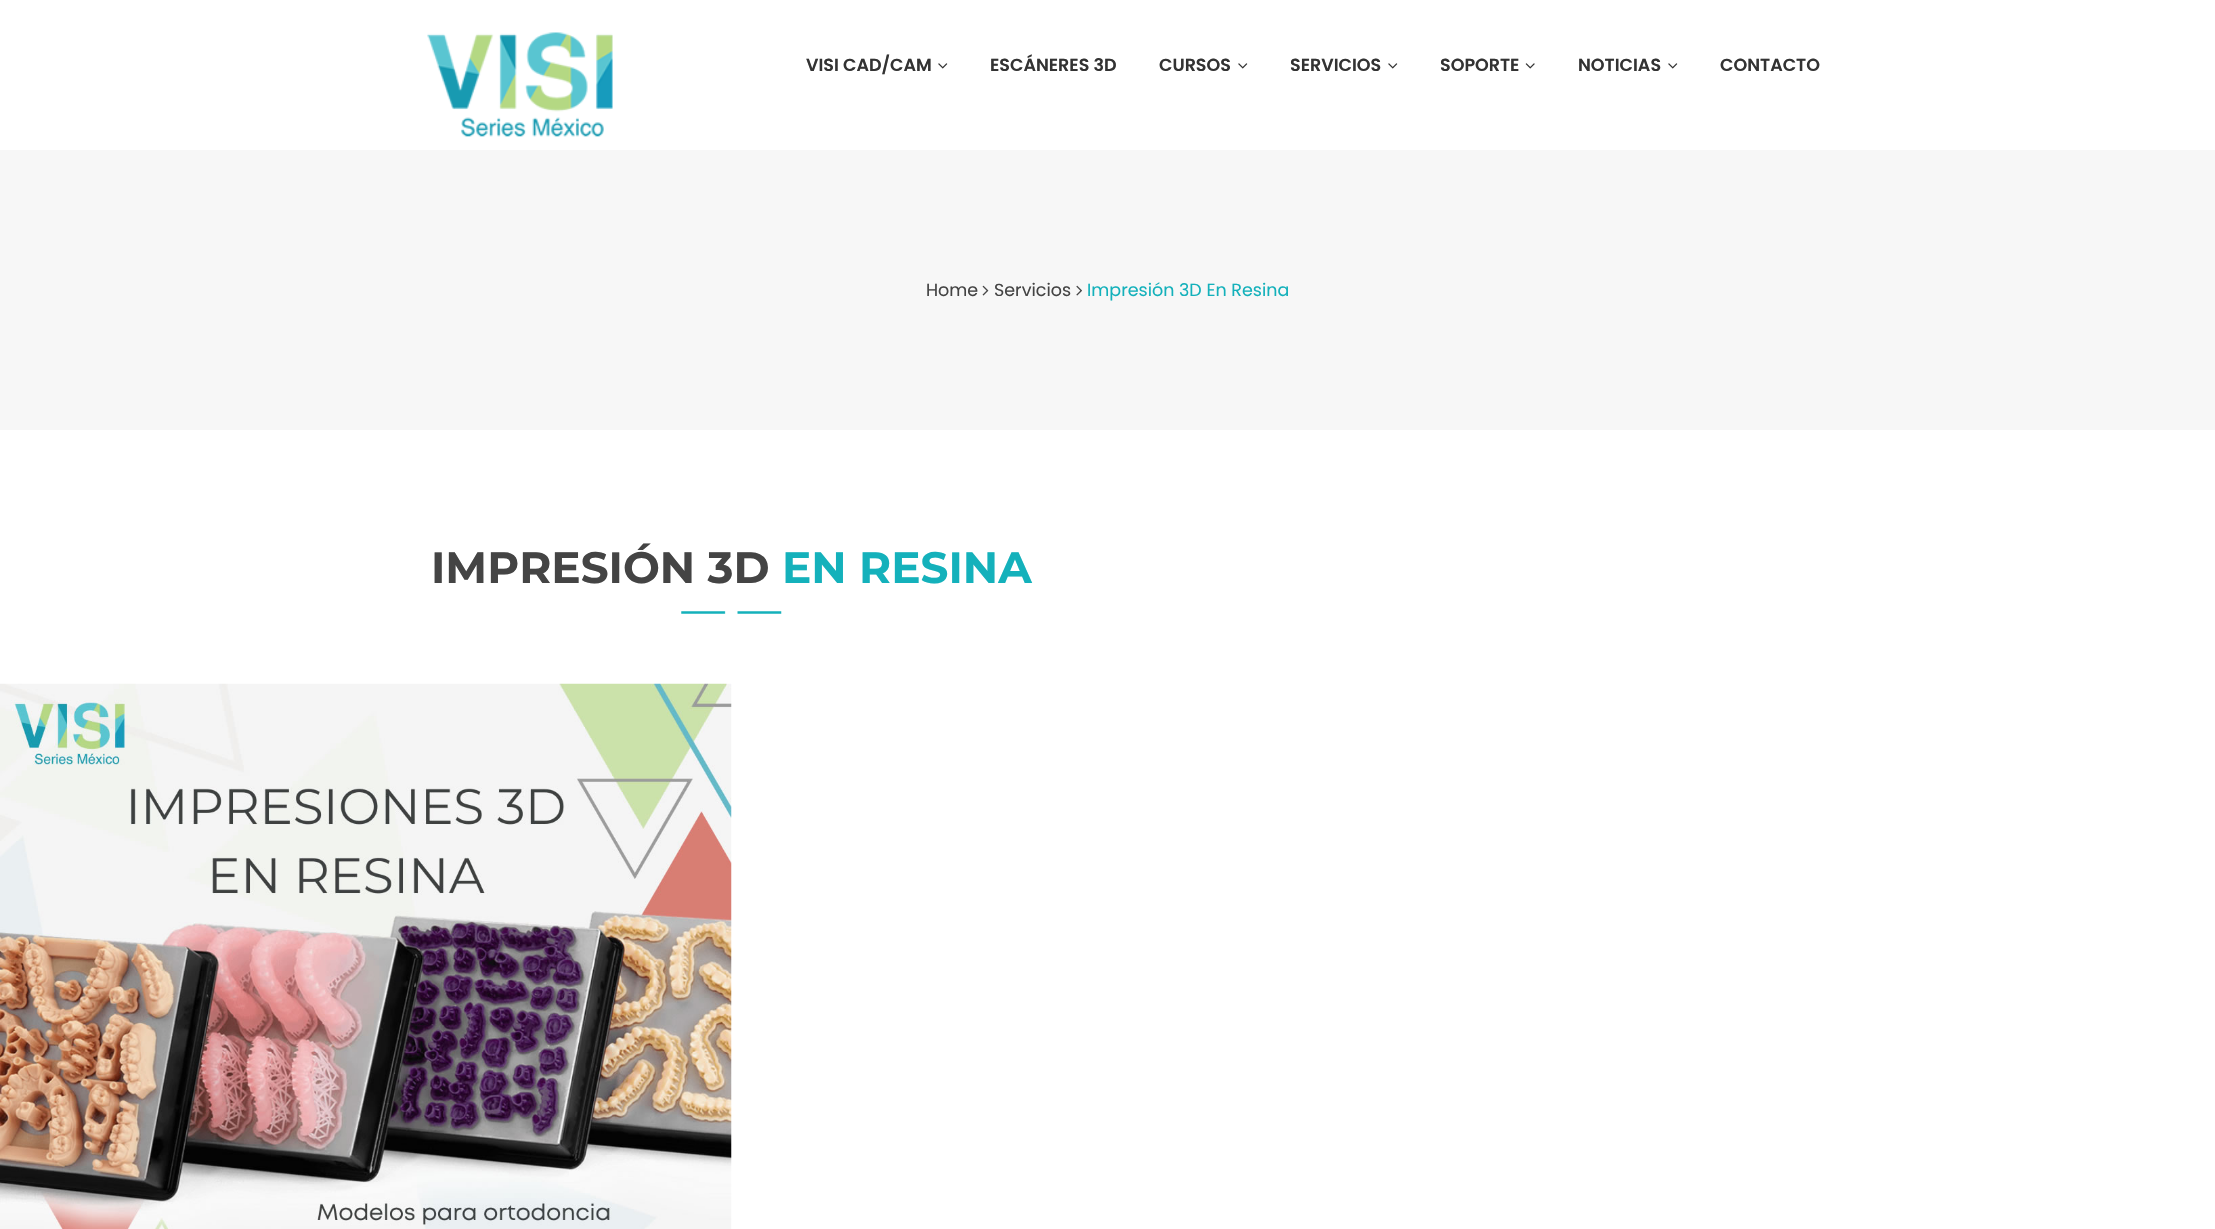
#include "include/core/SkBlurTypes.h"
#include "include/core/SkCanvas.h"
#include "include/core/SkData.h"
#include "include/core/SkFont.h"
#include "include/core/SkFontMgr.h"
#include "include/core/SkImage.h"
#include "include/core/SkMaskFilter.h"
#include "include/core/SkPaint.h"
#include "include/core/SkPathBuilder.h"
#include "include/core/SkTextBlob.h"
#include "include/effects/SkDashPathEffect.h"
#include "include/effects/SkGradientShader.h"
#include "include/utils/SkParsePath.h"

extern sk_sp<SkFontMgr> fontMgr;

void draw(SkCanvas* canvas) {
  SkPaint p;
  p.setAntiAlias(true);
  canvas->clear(SK_ColorWHITE);
  canvas->drawImageRect(SkImages::DeferredFromEncodedData(SkData::MakeFromFileName("images/1.png")), SkRect::MakeLTRB(427, 32, 613, 137), SkSamplingOptions());
  canvas->drawImageRect(SkImages::DeferredFromEncodedData(SkData::MakeFromFileName("images/2.png")), SkRect::MakeLTRB(938, 63, 948, 69), SkSamplingOptions());
  canvas->drawImageRect(SkImages::DeferredFromEncodedData(SkData::MakeFromFileName("images/2.png")), SkRect::MakeLTRB(1238, 63, 1248, 69), SkSamplingOptions());
  canvas->drawImageRect(SkImages::DeferredFromEncodedData(SkData::MakeFromFileName("images/2.png")), SkRect::MakeLTRB(1388, 63, 1398, 69), SkSamplingOptions());
  canvas->drawImageRect(SkImages::DeferredFromEncodedData(SkData::MakeFromFileName("images/3.png")), SkRect::MakeLTRB(1525, 63, 1535, 69), SkSamplingOptions());
  canvas->drawImageRect(SkImages::DeferredFromEncodedData(SkData::MakeFromFileName("images/2.png")), SkRect::MakeLTRB(1668, 63, 1678, 69), SkSamplingOptions());
  p.setColor(SkColorSetRGB(247, 247, 247));
  canvas->drawRect(SkRect::MakeLTRB(0, 150, 2215, 430), p);
  canvas->drawImageRect(SkImages::DeferredFromEncodedData(SkData::MakeFromFileName("images/4.png")), SkRect::MakeLTRB(982, 285, 989, 296), SkSamplingOptions());
  canvas->drawImageRect(SkImages::DeferredFromEncodedData(SkData::MakeFromFileName("images/5.png")), SkRect::MakeLTRB(1076, 285, 1082, 296), SkSamplingOptions());
  canvas->drawImageRect(SkImages::DeferredFromEncodedData(SkData::MakeFromFileName("images/6.png")), SkRect::MakeLTRB(681, 611, 782, 614), SkSamplingOptions());
  canvas->drawImageRect(SkImages::DeferredFromEncodedData(SkData::MakeFromFileName("images/7.png")), SkRect::MakeLTRB(0, 683, 732, 1229), SkSamplingOptions());
  SkFont font1(fontMgr->matchFamilyStyle("Poppins", SkFontStyle(600, SkFontStyle::kNormal_Width, SkFontStyle::kUpright_Slant)), 17.5f);
  font1.setSubpixel(true);
  p.setColor(SkColorSetRGB(51, 51, 51));
  canvas->drawString("VISI CAD/CAM", 806, 71, font1, p);
  canvas->drawString("ESCÁNERES 3D", 990, 71, font1, p);
  canvas->drawString("CURSOS", 1159, 71, font1, p);
  canvas->drawString("SERVICIOS", 1290, 71, font1, p);
  canvas->drawString("SOPORTE", 1440, 71, font1, p);
  canvas->drawString("NOTICIAS", 1578, 71, font1, p);
  canvas->drawString("CONTACTO", 1720, 71, font1, p);
  SkFont font2(fontMgr->matchFamilyStyle("Poppins", SkFontStyle::Normal()), 17.5f);
  font2.setSubpixel(true);
  p.setColor(SkColorSetRGB(68, 68, 68));
  canvas->drawString("Home", 926, 296, font2, p);
  canvas->drawString("Servicios", 994, 296, font2, p);
  p.setColor(SkColorSetRGB(20, 177, 187));
  canvas->drawString("Impresión 3D En Resina", 1087, 296, font2, p);
  SkFont font3(fontMgr->matchFamilyStyle("Montserrat", SkFontStyle::Bold()), 43.75f);
  font3.setSubpixel(true);
  p.setColor(SkColorSetRGB(68, 68, 68));
  canvas->drawString("IMPRESIÓN 3D", 431, 583, font3, p);
  p.setColor(SkColorSetRGB(20, 177, 187));
  canvas->drawString("EN RESINA", 782, 583, font3, p);
}
